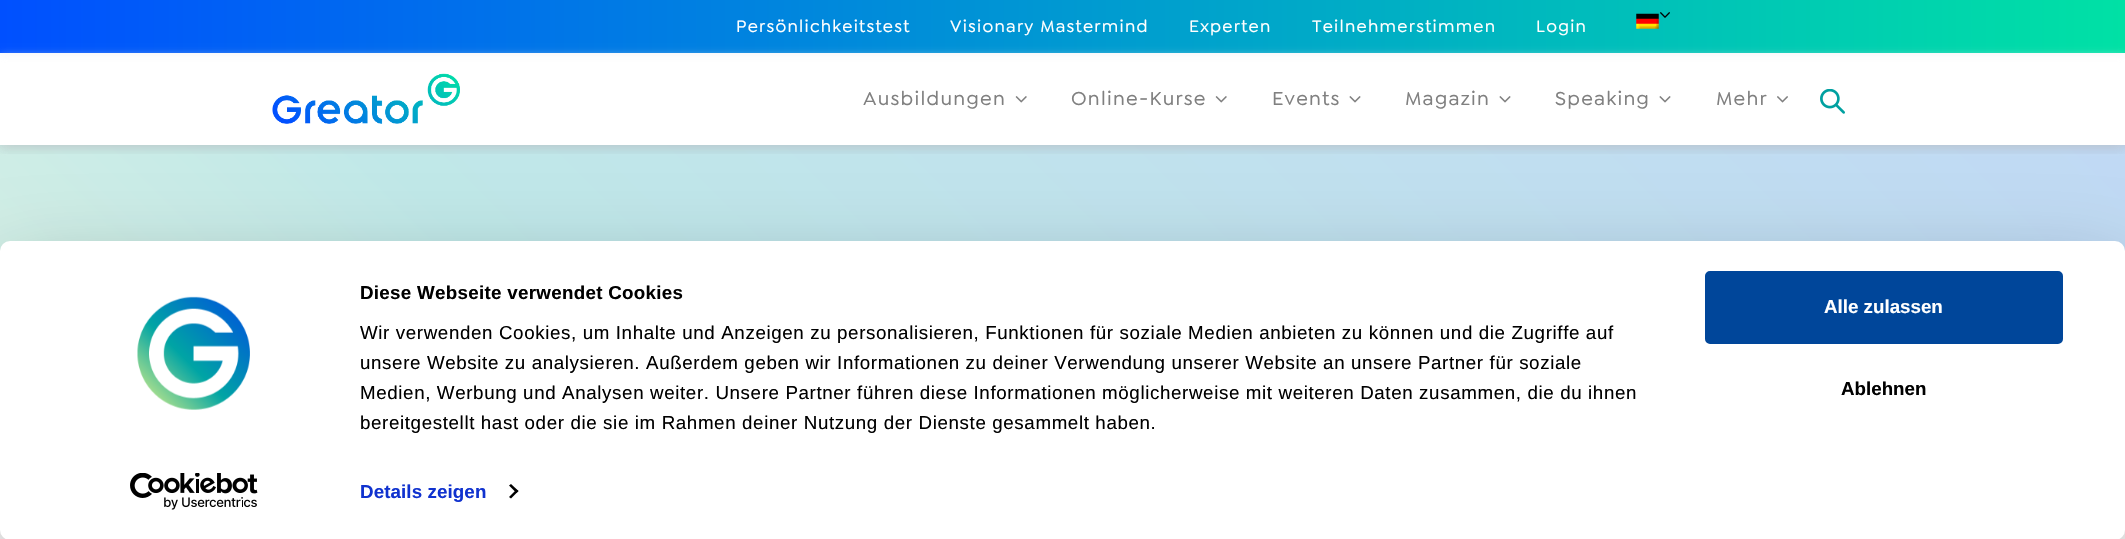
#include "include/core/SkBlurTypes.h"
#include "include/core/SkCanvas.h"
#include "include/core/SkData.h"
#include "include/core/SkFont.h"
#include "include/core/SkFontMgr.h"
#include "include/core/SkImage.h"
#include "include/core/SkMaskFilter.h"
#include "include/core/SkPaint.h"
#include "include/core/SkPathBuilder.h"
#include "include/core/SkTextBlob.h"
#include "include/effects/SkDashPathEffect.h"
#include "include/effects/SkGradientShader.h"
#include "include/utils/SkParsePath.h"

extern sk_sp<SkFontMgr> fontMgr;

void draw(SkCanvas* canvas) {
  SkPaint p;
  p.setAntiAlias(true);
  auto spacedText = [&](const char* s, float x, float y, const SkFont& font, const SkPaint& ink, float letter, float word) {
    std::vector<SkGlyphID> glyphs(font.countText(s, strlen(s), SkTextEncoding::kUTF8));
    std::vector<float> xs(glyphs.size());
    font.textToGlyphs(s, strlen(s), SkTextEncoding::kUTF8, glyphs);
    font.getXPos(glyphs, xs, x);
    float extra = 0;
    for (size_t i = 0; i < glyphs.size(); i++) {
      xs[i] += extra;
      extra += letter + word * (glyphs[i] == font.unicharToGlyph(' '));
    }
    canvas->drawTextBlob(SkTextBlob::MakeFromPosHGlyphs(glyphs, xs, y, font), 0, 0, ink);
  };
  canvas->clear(SK_ColorWHITE);
  {
    const SkColor colors[] = {SkColorSetRGB(255, 255, 224), SkColorSetRGB(192, 232, 232), SkColorSetRGB(192, 217, 244)};
    const float stops[] = {0, 0.5f, 1};
    const SkPoint ends[] = {{-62, 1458}, {1688, -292}};
    p.setShader(SkGradientShader::MakeLinear(ends, colors, stops, 3, SkTileMode::kClamp));
    p.setAlpha(255);
  }
  canvas->drawRect(SkRect::MakeLTRB(0, 145, 2125, 251), p);
  canvas->save();
  canvas->clipRect(SkRect::MakeLTRB(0, 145, 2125, 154));
  p.setShader(nullptr);
  p.setColor(SkColorSetARGB(77, 0, 0, 0));
  p.setMaskFilter(SkMaskFilter::MakeBlur(kNormal_SkBlurStyle, 6));
  canvas->drawRect(SkRect::MakeLTRB(0, 0, 2125, 145), p);
  p.setMaskFilter(nullptr);
  canvas->restore();
  p.setColor(SkColorSetARGB(115, 232, 234, 242));
  p.setMaskFilter(SkMaskFilter::MakeBlur(kNormal_SkBlurStyle, 4));
  canvas->drawRect(SkRect::MakeLTRB(0, 3, 2125, 55), p);
  p.setMaskFilter(nullptr);
  {
    const SkColor colors[] = {SkColorSetRGB(0, 80, 255), SkColorSetRGB(0, 225, 165)};
    const float stops[] = {0, 1};
    const SkPoint ends[] = {{0, 26}, {2125, 26}};
    p.setShader(SkGradientShader::MakeLinear(ends, colors, stops, 2, SkTileMode::kClamp));
    p.setAlpha(255);
  }
  canvas->drawRect(SkRect::MakeLTRB(0, 0, 2125, 53), p);
  canvas->drawImageRect(SkImages::DeferredFromEncodedData(SkData::MakeFromFileName("images/1.png")), SkRect::MakeLTRB(1660, 12, 1670, 18), SkSamplingOptions());
  canvas->drawImageRect(SkImages::DeferredFromEncodedData(SkData::MakeFromFileName("images/2.png")), SkRect::MakeLTRB(1636, 13, 1659, 29), SkSamplingOptions());
  canvas->save();
  canvas->clipPath(SkPathBuilder(SkPathFillType::kEvenOdd).moveTo(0, 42).lineTo(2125, 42).lineTo(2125, 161).lineTo(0, 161).close().moveTo(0, 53).lineTo(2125, 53).lineTo(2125, 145).lineTo(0, 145).close().detach(), true);
  p.setShader(nullptr);
  p.setColor(SkColorSetARGB(115, 232, 234, 242));
  p.setMaskFilter(SkMaskFilter::MakeBlur(kNormal_SkBlurStyle, 4));
  canvas->drawRect(SkRect::MakeLTRB(0, 55, 2125, 148), p);
  p.setMaskFilter(nullptr);
  canvas->restore();
  canvas->drawImageRect(SkImages::DeferredFromEncodedData(SkData::MakeFromFileName("images/3.png")), SkRect::MakeLTRB(272, 73, 460, 124), SkSamplingOptions());
  canvas->drawImageRect(SkImages::DeferredFromEncodedData(SkData::MakeFromFileName("images/4.png")), SkRect::MakeLTRB(1015, 96, 1027, 103), SkSamplingOptions());
  canvas->drawImageRect(SkImages::DeferredFromEncodedData(SkData::MakeFromFileName("images/4.png")), SkRect::MakeLTRB(1215, 96, 1227, 103), SkSamplingOptions());
  canvas->drawImageRect(SkImages::DeferredFromEncodedData(SkData::MakeFromFileName("images/5.png")), SkRect::MakeLTRB(1349, 96, 1361, 103), SkSamplingOptions());
  canvas->drawImageRect(SkImages::DeferredFromEncodedData(SkData::MakeFromFileName("images/5.png")), SkRect::MakeLTRB(1499, 96, 1511, 103), SkSamplingOptions());
  canvas->drawImageRect(SkImages::DeferredFromEncodedData(SkData::MakeFromFileName("images/5.png")), SkRect::MakeLTRB(1659, 96, 1671, 103), SkSamplingOptions());
  canvas->drawImageRect(SkImages::DeferredFromEncodedData(SkData::MakeFromFileName("images/6.png")), SkRect::MakeLTRB(1777, 96, 1788, 103), SkSamplingOptions());
  canvas->drawImageRect(SkImages::DeferredFromEncodedData(SkData::MakeFromFileName("images/7.png")), SkRect::MakeLTRB(1820, 89, 1845, 114), SkSamplingOptions());
  p.setColor(SkColorSetARGB(77, 0, 0, 0));
  p.setMaskFilter(SkMaskFilter::MakeBlur(kNormal_SkBlurStyle, 44));
  canvas->drawRoundRect(SkRect::MakeLTRB(0, 279, 2125, 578), 10, 10, p);
  p.setMaskFilter(nullptr);
  p.setColor(SK_ColorWHITE);
  canvas->drawRoundRect(SkRect::MakeLTRB(0, 241, 2125, 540), 10, 10, p);
  canvas->drawImageRect(SkImages::DeferredFromEncodedData(SkData::MakeFromFileName("images/8.png")), SkRect::MakeLTRB(137, 296, 250, 410), SkSamplingOptions());
  canvas->drawImageRect(SkImages::DeferredFromEncodedData(SkData::MakeFromFileName("images/9.png")), SkRect::MakeLTRB(130, 473, 258, 510), SkSamplingOptions());
  p.setColor(SK_ColorBLACK);
  canvas->drawPath(SkPathBuilder().moveTo(511, 484).lineTo(518.5f, 491).lineTo(516.5f, 493).lineTo(509, 485.5f).close().detach(), p);
  canvas->drawPath(SkPathBuilder().moveTo(516.5f, 489.5f).lineTo(518.5f, 491).lineTo(511, 498.5f).lineTo(509, 497).close().detach(), p);
  p.setColor(SkColorSetRGB(0, 70, 154));
  canvas->drawRoundRect(SkRect::MakeLTRB(1706.5f, 272.5f, 2061.5f, 342.5f), 3.5f, 3.5f, p);
  p.setStyle(SkPaint::kStroke_Style);
  p.setStrokeWidth(3);
  canvas->drawRoundRect(SkRect::MakeLTRB(1706.5f, 272.5f, 2061.5f, 342.5f), 3.5f, 3.5f, p);
  SkFont font1(fontMgr->matchFamilyStyle("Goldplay", SkFontStyle(500, SkFontStyle::kNormal_Width, SkFontStyle::kUpright_Slant)), 17.5f);
  font1.setSubpixel(true);
  p.setStyle(SkPaint::kFill_Style);
  p.setColor(SK_ColorWHITE);
  spacedText("Persönlichkeitstest", 736, 32, font1, p, 1.25f, 0);
  spacedText("Visionary Mastermind", 950, 32, font1, p, 1.25f, 0);
  spacedText("Experten", 1189, 32, font1, p, 1.25f, 0);
  spacedText("Teilnehmerstimmen", 1312, 32, font1, p, 1.25f, 0);
  spacedText("Login", 1536, 32, font1, p, 1.25f, 0);
  SkFont font2(fontMgr->matchFamilyStyle("Goldplay", SkFontStyle(500, SkFontStyle::kNormal_Width, SkFontStyle::kUpright_Slant)), 20);
  font2.setSubpixel(true);
  p.setColor(SkColorSetRGB(128, 128, 128));
  spacedText("Ausbildungen", 863, 105, font2, p, 1.25f, 0);
  spacedText("Online-Kurse", 1071, 105, font2, p, 1.25f, 0);
  spacedText("Events", 1272, 105, font2, p, 1.25f, 0);
  spacedText("Magazin", 1405, 105, font2, p, 1.25f, 0);
  spacedText("Speaking", 1555, 105, font2, p, 1.25f, 0);
  spacedText("Mehr", 1716, 105, font2, p, 1.25f, 0);
  SkFont font3(fontMgr->matchFamilyStyle("Liberation Sans", SkFontStyle::Bold()), 18.75f);
  font3.setSubpixel(true);
  p.setColor(SK_ColorBLACK);
  spacedText("Diese Webseite verwendet Cookies", 360, 299, font3, p, 0.3f, 0);
  SkFont font4(fontMgr->matchFamilyStyle("Liberation Sans", SkFontStyle::Normal()), 18.75f);
  font4.setSubpixel(true);
  spacedText("Wir verwenden Cookies, um Inhalte und Anzeigen zu personalisieren, Funktionen für soziale Medien anbieten zu können und die Zugriffe auf", 360, 339, font4, p, 0.62f, 0);
  spacedText("unsere Website zu analysieren. Außerdem geben wir Informationen zu deiner Verwendung unserer Website an unsere Partner für soziale", 360, 369, font4, p, 0.62f, 0);
  spacedText("Medien, Werbung und Analysen weiter. Unsere Partner führen diese Informationen möglicherweise mit weiteren Daten zusammen, die du ihnen", 360, 399, font4, p, 0.62f, 0);
  spacedText("bereitgestellt hast oder die sie im Rahmen deiner Nutzung der Dienste gesammelt haben.", 360, 429, font4, p, 0.62f, 0);
  p.setColor(SkColorSetRGB(16, 50, 207));
  spacedText("Details zeigen", 360, 498, font3, p, 0.1f, 0);
  p.setColor(SK_ColorWHITE);
  canvas->drawString("Alle zulassen", 1824, 313, font3, p);
  p.setColor(SK_ColorBLACK);
  canvas->drawString("Ablehnen", 1841, 395, font3, p);
}
